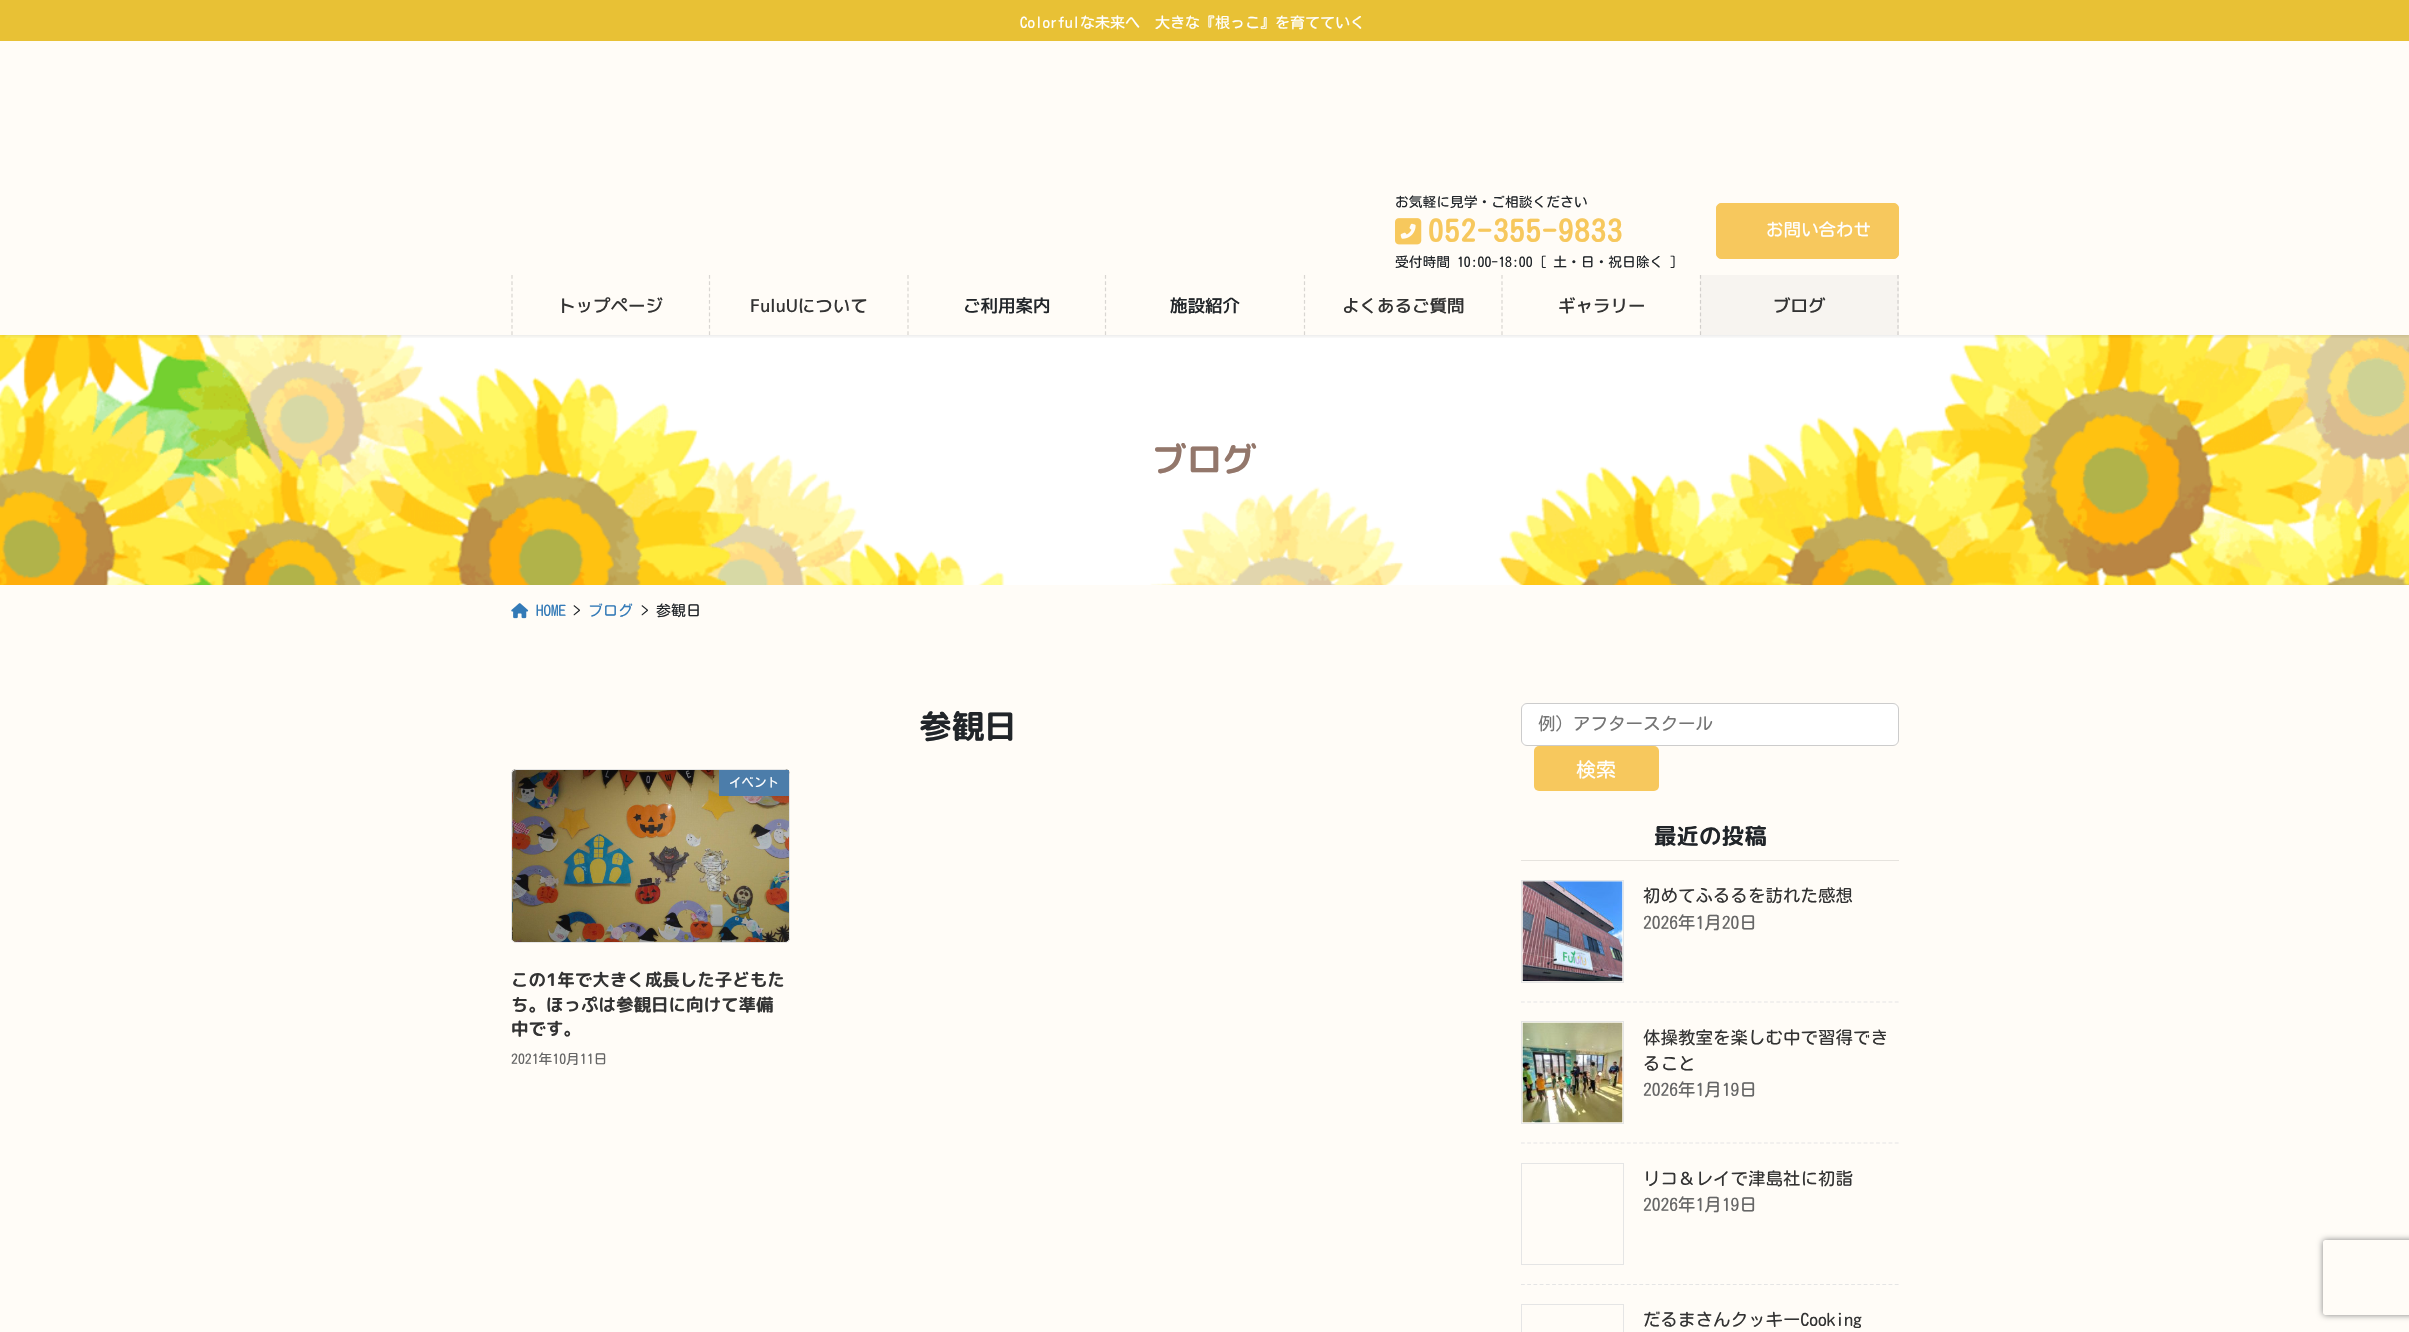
#include "include/core/SkBlurTypes.h"
#include "include/core/SkCanvas.h"
#include "include/core/SkData.h"
#include "include/core/SkFont.h"
#include "include/core/SkFontMgr.h"
#include "include/core/SkImage.h"
#include "include/core/SkMaskFilter.h"
#include "include/core/SkPaint.h"
#include "include/core/SkPathBuilder.h"
#include "include/core/SkTextBlob.h"
#include "include/effects/SkDashPathEffect.h"
#include "include/effects/SkGradientShader.h"
#include "include/utils/SkParsePath.h"

extern sk_sp<SkFontMgr> fontMgr;

void draw(SkCanvas* canvas) {
  SkPaint p;
  p.setAntiAlias(true);
  auto spacedText = [&](const char* s, float x, float y, const SkFont& font, const SkPaint& ink, float letter, float word) {
    std::vector<SkGlyphID> glyphs(font.countText(s, strlen(s), SkTextEncoding::kUTF8));
    std::vector<float> xs(glyphs.size());
    font.textToGlyphs(s, strlen(s), SkTextEncoding::kUTF8, glyphs);
    font.getXPos(glyphs, xs, x);
    float extra = 0;
    for (size_t i = 0; i < glyphs.size(); i++) {
      xs[i] += extra;
      extra += letter + word * (glyphs[i] == font.unicharToGlyph(' '));
    }
    canvas->drawTextBlob(SkTextBlob::MakeFromPosHGlyphs(glyphs, xs, y, font), 0, 0, ink);
  };
  canvas->clear(SkColorSetRGB(255, 252, 247));
  canvas->drawImageRect(SkImages::DeferredFromEncodedData(SkData::MakeFromFileName("images/2.png")), SkRect::MakeLTRB(0, 335, 2409, 585), SkSamplingOptions());
  canvas->save();
  canvas->clipRect(SkRect::MakeLTRB(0, 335, 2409, 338));
  p.setColor(SkColorSetARGB(26, 0, 0, 0));
  p.setMaskFilter(SkMaskFilter::MakeBlur(kNormal_SkBlurStyle, 2));
  canvas->drawRect(SkRect::MakeLTRB(0, -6, 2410, 336), p);
  p.setMaskFilter(nullptr);
  canvas->restore();
  p.setColor(SkColorSetRGB(232, 193, 53));
  canvas->drawRect(SkRect::MakeLTRB(0, 0, 2409, 41), p);
  canvas->drawImageRect(SkImages::DeferredFromEncodedData(SkData::MakeFromFileName("images/1.png")), SkRect::MakeLTRB(1395, 218, 1422, 245), SkSamplingOptions());
  p.setColor(SkColorSetRGB(247, 200, 93));
  canvas->drawRoundRect(SkRect::MakeLTRB(1716.5f, 203.5f, 1898.5f, 258.5f), 4.5f, 4.5f, p);
  p.setStyle(SkPaint::kStroke_Style);
  p.setStrokeWidth(1);
  canvas->drawRoundRect(SkRect::MakeLTRB(1716.5f, 203.5f, 1898.5f, 258.5f), 4.5f, 4.5f, p);
  p.setStrokeWidth(1.2f);
  p.setColor(SkColorSetRGB(217, 214, 210));
  p.setPathEffect(SkDashPathEffect::Make({{3.75f, 2.5f}}, 0));
  canvas->drawPath(SkPathBuilder().moveTo(512, 275).lineTo(512, 335).detach(), p);
  p.setPathEffect(nullptr);
  p.setPathEffect(SkDashPathEffect::Make({{3.75f, 2.5f}}, 0));
  canvas->drawPath(SkPathBuilder().moveTo(709.5f, 275).lineTo(709.5f, 335).detach(), p);
  p.setPathEffect(nullptr);
  p.setPathEffect(SkDashPathEffect::Make({{3.75f, 2.5f}}, 0));
  canvas->drawPath(SkPathBuilder().moveTo(908, 275).lineTo(908, 335).detach(), p);
  p.setPathEffect(nullptr);
  p.setPathEffect(SkDashPathEffect::Make({{3.75f, 2.5f}}, 0));
  canvas->drawPath(SkPathBuilder().moveTo(1105.5f, 275).lineTo(1105.5f, 335).detach(), p);
  p.setPathEffect(nullptr);
  p.setPathEffect(SkDashPathEffect::Make({{3.75f, 2.5f}}, 0));
  canvas->drawPath(SkPathBuilder().moveTo(1304.5f, 275).lineTo(1304.5f, 335).detach(), p);
  p.setPathEffect(nullptr);
  p.setPathEffect(SkDashPathEffect::Make({{3.75f, 2.5f}}, 0));
  canvas->drawPath(SkPathBuilder().moveTo(1502, 275).lineTo(1502, 335).detach(), p);
  p.setPathEffect(nullptr);
  p.setStyle(SkPaint::kFill_Style);
  p.setColor(SkColorSetRGB(247, 244, 240));
  canvas->drawRect(SkRect::MakeLTRB(1700, 275, 1899, 335), p);
  p.setStyle(SkPaint::kStroke_Style);
  p.setColor(SkColorSetRGB(210, 207, 204));
  p.setPathEffect(SkDashPathEffect::Make({{3.75f, 2.5f}}, 0));
  canvas->drawPath(SkPathBuilder().moveTo(1898, 275).lineTo(1898, 335).detach(), p);
  p.setPathEffect(nullptr);
  p.setPathEffect(SkDashPathEffect::Make({{3.75f, 2.5f}}, 0));
  canvas->drawPath(SkPathBuilder().moveTo(1700.5f, 275).lineTo(1700.5f, 335).detach(), p);
  p.setPathEffect(nullptr);
  canvas->drawImageRect(SkImages::DeferredFromEncodedData(SkData::MakeFromFileName("images/3.png")), SkRect::MakeLTRB(511, 603, 529, 619), SkSamplingOptions());
  canvas->drawImageRect(SkImages::DeferredFromEncodedData(SkData::MakeFromFileName("images/4.png")), SkRect::MakeLTRB(511, 769, 790, 943), SkSamplingOptions());
  p.setStrokeWidth(1);
  p.setColor(SkColorSetRGB(229, 229, 229));
  canvas->drawRoundRect(SkRect::MakeLTRB(511.5f, 769.5f, 789.5f, 942.5f), 4.5f, 4.5f, p);
  p.setStyle(SkPaint::kFill_Style);
  p.setColor(SkColorSetRGB(76, 125, 170));
  canvas->drawRect(SkRect::MakeLTRB(719, 770, 789, 796), p);
  p.setColor(SK_ColorWHITE);
  canvas->drawRoundRect(SkRect::MakeLTRB(1521.5f, 703.5f, 1898.5f, 745.5f), 5.5f, 5.5f, p);
  p.setStyle(SkPaint::kStroke_Style);
  p.setColor(SkColorSetRGB(204, 204, 204));
  canvas->drawRoundRect(SkRect::MakeLTRB(1521.5f, 703.5f, 1898.5f, 745.5f), 5.5f, 5.5f, p);
  p.setStyle(SkPaint::kFill_Style);
  p.setColor(SkColorSetRGB(247, 200, 93));
  canvas->drawRoundRect(SkRect::MakeLTRB(1534, 746, 1659, 791), 5, 5, p);
  p.setColor(SkColorSetRGB(230, 227, 222));
  canvas->drawRect(SkRect::MakeLTRB(1521, 860, 1899, 861), p);
  p.setStyle(SkPaint::kStroke_Style);
  p.setStrokeWidth(1.2f);
  p.setColor(SkColorSetRGB(229, 229, 229));
  p.setPathEffect(SkDashPathEffect::Make({{3.75f, 2.48f}}, 0));
  canvas->drawPath(SkPathBuilder().moveTo(1521, 1002).lineTo(1899, 1002).detach(), p);
  p.setPathEffect(nullptr);
  p.setStrokeWidth(1);
  canvas->drawRect(SkRect::MakeLTRB(1521.5f, 880.5f, 1623.5f, 982.5f), p);
  canvas->drawImageRect(SkImages::DeferredFromEncodedData(SkData::MakeFromFileName("images/5.png")), SkRect::MakeLTRB(1522, 881, 1623, 982), SkSamplingOptions());
  p.setStrokeWidth(1.2f);
  p.setPathEffect(SkDashPathEffect::Make({{3.75f, 2.48f}}, 0));
  canvas->drawPath(SkPathBuilder().moveTo(1521, 1143).lineTo(1899, 1143).detach(), p);
  p.setPathEffect(nullptr);
  p.setStrokeWidth(1);
  canvas->drawRect(SkRect::MakeLTRB(1521.5f, 1021.5f, 1623.5f, 1123.5f), p);
  canvas->drawImageRect(SkImages::DeferredFromEncodedData(SkData::MakeFromFileName("images/6.png")), SkRect::MakeLTRB(1522, 1022, 1623, 1123), SkSamplingOptions());
  p.setStrokeWidth(1.2f);
  p.setPathEffect(SkDashPathEffect::Make({{3.75f, 2.48f}}, 0));
  canvas->drawPath(SkPathBuilder().moveTo(1521, 1284.5f).lineTo(1899, 1284.5f).detach(), p);
  p.setPathEffect(nullptr);
  p.setStrokeWidth(1);
  canvas->drawRect(SkRect::MakeLTRB(1521.5f, 1163.5f, 1623.5f, 1264.5f), p);
  canvas->drawRect(SkRect::MakeLTRB(1521.5f, 1304.5f, 1623.5f, 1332.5f), p);
  canvas->save();
  canvas->clipPath(SkPathBuilder(SkPathFillType::kEvenOdd).moveTo(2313, 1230).lineTo(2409, 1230).lineTo(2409, 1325).lineTo(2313, 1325).close().moveTo(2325.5f, 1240).lineTo(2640.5f, 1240).cubicTo(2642, 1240, 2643, 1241, 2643, 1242.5f).lineTo(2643, 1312.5f).cubicTo(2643, 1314, 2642, 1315, 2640.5f, 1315).lineTo(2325.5f, 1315).cubicTo(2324, 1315, 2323, 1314, 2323, 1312.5f).lineTo(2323, 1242.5f).cubicTo(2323, 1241, 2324, 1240, 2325.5f, 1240).close().detach(), true);
  p.setStyle(SkPaint::kFill_Style);
  p.setColor(SkColorSetRGB(128, 128, 128));
  p.setMaskFilter(SkMaskFilter::MakeBlur(kNormal_SkBlurStyle, 3));
  canvas->drawRoundRect(SkRect::MakeLTRB(2323, 1240, 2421, 1315), 2.5f, 2.5f, p);
  p.setMaskFilter(nullptr);
  canvas->restore();
  SkFont font1(fontMgr->matchFamilyStyle("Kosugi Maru", SkFontStyle::Normal()), 15);
  font1.setSubpixel(true);
  p.setColor(SK_ColorWHITE);
  canvas->drawString("Colorfulな未来へ　大きな『根っこ』を育てていく", 1020, 28, font1, p);
  SkFont font2(fontMgr->matchFamilyStyle("Kosugi Maru", SkFontStyle::Normal()), 13.75f);
  font2.setSubpixel(true);
  p.setColor(SkColorSetRGB(33, 37, 41));
  canvas->drawString("お気軽に見学・ご相談ください", 1395, 207, font2, p);
  SkFont font3(fontMgr->matchFamilyStyle("Kosugi Maru", SkFontStyle::Bold()), 30);
  font3.setSubpixel(true);
  p.setColor(SkColorSetRGB(247, 200, 93));
  spacedText("052-355-9833", 1428, 242, font3, p, 1.25f, 0);
  p.setColor(SkColorSetRGB(33, 37, 41));
  canvas->drawString("受付時間 10:00-18:00 [ 土・日・祝日除く ]", 1395, 267, font2, p);
  SkFont font4(fontMgr->matchFamilyStyle("Kosugi Maru", SkFontStyle::Normal()), 17.5f);
  font4.setSubpixel(true);
  p.setColor(SK_ColorWHITE);
  canvas->drawString("お問い合わせ", 1766, 236, font4, p);
  SkFont font5(fontMgr->matchFamilyStyle("M PLUS 1p", SkFontStyle(500, SkFontStyle::kNormal_Width, SkFontStyle::kUpright_Slant)), 17.5f);
  font5.setSubpixel(true);
  p.setColor(SkColorSetRGB(51, 51, 51));
  canvas->drawString("トップページ", 558, 312, font5, p);
  canvas->drawString("FuluUについて", 750, 312, font5, p);
  p.setColor(SkColorSetRGB(33, 37, 41));
  canvas->drawString("ご利用案内", 963, 312, font5, p);
  canvas->drawString("施設紹介", 1170, 312, font5, p);
  p.setColor(SkColorSetRGB(51, 51, 51));
  canvas->drawString("よくあるご質問", 1342, 312, font5, p);
  canvas->drawString("ギャラリー", 1558, 312, font5, p);
  canvas->drawString("ブログ", 1773, 312, font5, p);
  SkFont font6(fontMgr->matchFamilyStyle("Rounded Mplus 1c Bold", SkFontStyle::Bold()), 35);
  font6.setSubpixel(true);
  p.setColor(SkColorSetRGB(147, 119, 107));
  canvas->drawString("ブログ", 1152, 472, font6, p);
  p.setColor(SkColorSetRGB(51, 122, 183));
  canvas->drawString("HOME", 536, 616, font1, p);
  p.setColor(SkColorSetRGB(33, 37, 41));
  canvas->drawString(">", 573, 616, font1, p);
  p.setColor(SkColorSetRGB(51, 122, 183));
  canvas->drawString("ブログ", 588, 616, font1, p);
  p.setColor(SkColorSetRGB(33, 37, 41));
  canvas->drawString("> 参観日", 641, 616, font1, p);
  SkFont font7(fontMgr->matchFamilyStyle("Rounded Mplus 1c Bold", SkFontStyle::Bold()), 32.5f);
  font7.setSubpixel(true);
  canvas->drawString("参観日", 919, 738, font7, p);
  SkFont font8(fontMgr->matchFamilyStyle("Kosugi Maru", SkFontStyle::Normal()), 12.5f);
  font8.setSubpixel(true);
  p.setColor(SK_ColorWHITE);
  canvas->drawString("イベント", 729, 787, font8, p);
  SkFont font9(fontMgr->matchFamilyStyle("Rounded Mplus 1c Bold", SkFontStyle::Bold()), 17.5f);
  font9.setSubpixel(true);
  p.setColor(SkColorSetRGB(51, 51, 51));
  canvas->drawString("この1年で大きく成長した子どもた", 511, 986, font9, p);
  canvas->drawString("ち。ほっぷは参観日に向けて準備", 511, 1011, font9, p);
  canvas->drawString("中です。", 511, 1035, font9, p);
  p.setColor(SkColorSetRGB(102, 102, 102));
  canvas->drawString("2021年10月11日", 511, 1064, font2, p);
  p.setColor(SkColorSetRGB(117, 117, 117));
  canvas->drawString("例）アフタースクール", 1538, 730, font4, p);
  SkFont font10(fontMgr->matchFamilyStyle("Kosugi Maru", SkFontStyle::Normal()), 20);
  font10.setSubpixel(true);
  p.setColor(SK_ColorWHITE);
  canvas->drawString("検索", 1576, 777, font10, p);
  SkFont font11(fontMgr->matchFamilyStyle("Rounded Mplus 1c Bold", SkFontStyle::Bold()), 22.5f);
  font11.setSubpixel(true);
  p.setColor(SkColorSetRGB(33, 37, 41));
  canvas->drawString("最近の投稿", 1654, 844, font11, p);
  p.setColor(SkColorSetRGB(51, 51, 51));
  canvas->drawString("初めてふるるを訪れた感想", 1643, 902, font4, p);
  p.setColor(SkColorSetRGB(102, 102, 102));
  canvas->drawString("2026年1月20日", 1643, 929, font4, p);
  p.setColor(SkColorSetRGB(51, 51, 51));
  canvas->drawString("体操教室を楽しむ中で習得でき", 1643, 1044, font4, p);
  canvas->drawString("ること", 1643, 1070, font4, p);
  p.setColor(SkColorSetRGB(102, 102, 102));
  canvas->drawString("2026年1月19日", 1643, 1096, font4, p);
  p.setColor(SkColorSetRGB(51, 51, 51));
  canvas->drawString("リコ＆レイで津島社に初詣", 1643, 1185, font4, p);
  p.setColor(SkColorSetRGB(102, 102, 102));
  canvas->drawString("2026年1月19日", 1643, 1211, font4, p);
  p.setColor(SkColorSetRGB(51, 51, 51));
  canvas->drawString("だるまさんクッキーCooking", 1643, 1326, font4, p);
}
